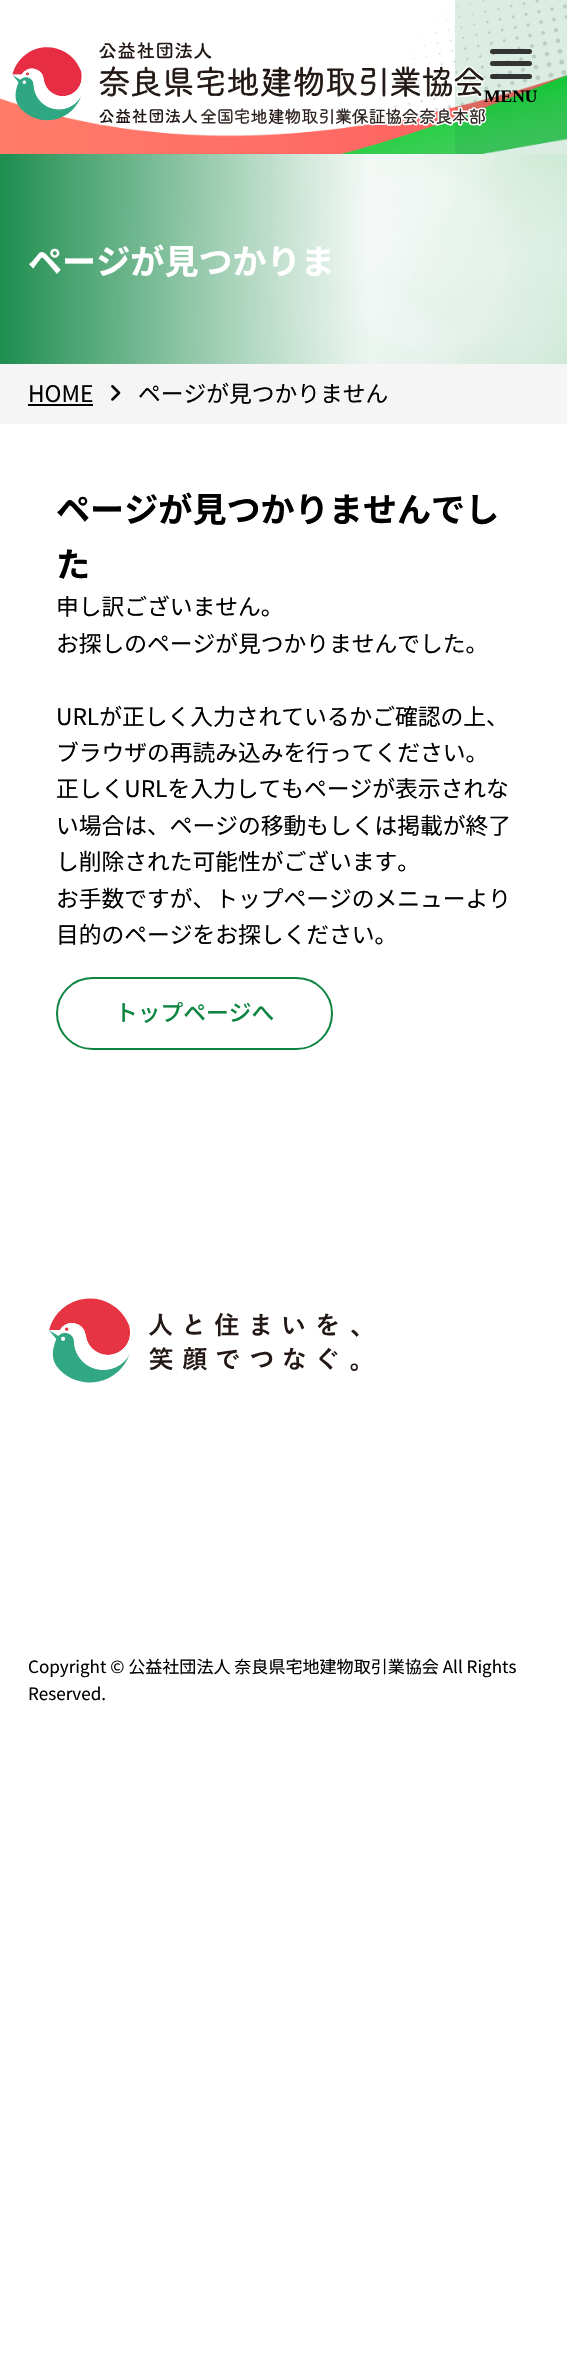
#include "include/core/SkBlurTypes.h"
#include "include/core/SkCanvas.h"
#include "include/core/SkData.h"
#include "include/core/SkFont.h"
#include "include/core/SkFontMgr.h"
#include "include/core/SkImage.h"
#include "include/core/SkMaskFilter.h"
#include "include/core/SkPaint.h"
#include "include/core/SkPathBuilder.h"
#include "include/core/SkTextBlob.h"
#include "include/effects/SkDashPathEffect.h"
#include "include/effects/SkGradientShader.h"
#include "include/utils/SkParsePath.h"

extern sk_sp<SkFontMgr> fontMgr;

void draw(SkCanvas* canvas) {
  SkPaint p;
  p.setAntiAlias(true);
  canvas->clear(SK_ColorWHITE);
  canvas->drawImageRect(SkImages::DeferredFromEncodedData(SkData::MakeFromFileName("images/1.png")), SkRect::MakeLTRB(0, 0, 567, 154), SkSamplingOptions());
  p.setColor(SkColorSetARGB(38, 13, 133, 65));
  canvas->drawRect(SkRect::MakeLTRB(455, 0, 567, 154), p);
  p.setColor(SkColorSetRGB(51, 51, 51));
  canvas->drawRoundRect(SkRect::MakeLTRB(490, 49, 532, 54), 2.5f, 2.5f, p);
  canvas->drawRoundRect(SkRect::MakeLTRB(490, 61, 532, 66), 2.5f, 2.5f, p);
  canvas->drawRoundRect(SkRect::MakeLTRB(490, 74, 532, 79), 2.5f, 2.5f, p);
  canvas->drawImageRect(SkImages::DeferredFromEncodedData(SkData::MakeFromFileName("images/3.png")), SkRect::MakeLTRB(0, 154, 567, 364), SkSamplingOptions());
  p.setColor(SkColorSetRGB(245, 245, 245));
  canvas->drawRect(SkRect::MakeLTRB(0, 364, 567, 424), p);
  p.setColor(SK_ColorBLACK);
  canvas->drawRect(SkRect::MakeLTRB(28, 404, 93, 406), p);
  canvas->drawImageRect(SkImages::DeferredFromEncodedData(SkData::MakeFromFileName("images/4.png")), SkRect::MakeLTRB(111, 385, 121, 401), SkSamplingOptions());
  p.setStyle(SkPaint::kStroke_Style);
  p.setStrokeWidth(2);
  p.setColor(SkColorSetRGB(13, 133, 65));
  canvas->drawRoundRect(SkRect::MakeLTRB(57, 978, 332, 1049), 35.5f, 35.5f, p);
  canvas->drawImageRect(SkImages::DeferredFromEncodedData(SkData::MakeFromFileName("images/5.png")), SkRect::MakeLTRB(49, 1298, 359, 1383), SkSamplingOptions());
  SkFont font1(fontMgr->matchFamilyStyle("Liberation Serif", SkFontStyle::Bold()), 17.5f);
  font1.setSubpixel(true);
  p.setStyle(SkPaint::kFill_Style);
  p.setColor(SK_ColorBLACK);
  canvas->drawString("MENU", 484, 102, font1, p);
  canvas->drawImageRect(SkImages::DeferredFromEncodedData(SkData::MakeFromFileName("images/2.png")), SkRect::MakeLTRB(12, 42, 487, 126), SkSamplingOptions());
  SkFont font2(fontMgr->matchFamilyStyle("Noto Sans JP", SkFontStyle::Bold()), 34.1f);
  font2.setSubpixel(true);
  p.setColor(SK_ColorWHITE);
  canvas->drawString("ページが見つかりま", 28, 274, font2, p);
  SkFont font3(fontMgr->matchFamilyStyle("Noto Sans JP", SkFontStyle::Normal()), 22.75f);
  font3.setSubpixel(true);
  p.setColor(SK_ColorBLACK);
  canvas->drawString("HOME", 28, 402, font3, p);
  canvas->drawString("ページが見つかりません", 138, 402, font3, p);
  canvas->drawString("ページが見つかりませんでし", 56, 522, font2, p);
  canvas->drawString("た", 56, 577, font2, p);
  canvas->drawString("申し訳ございません。", 56, 615, font3, p);
  canvas->drawString("お探しのページが見つかりませんでした。", 56, 652, font3, p);
  canvas->drawString("URLが正しく入力されているかご確認の上、", 56, 725, font3, p);
  canvas->drawString("ブラウザの再読み込みを行ってください。", 56, 761, font3, p);
  canvas->drawString("正しくURLを入力してもページが表示されな", 56, 797, font3, p);
  canvas->drawString("い場合は、ページの移動もしくは掲載が終了", 56, 834, font3, p);
  canvas->drawString("し削除された可能性がございます。", 56, 870, font3, p);
  canvas->drawString("お手数ですが、トップページのメニューより", 56, 907, font3, p);
  canvas->drawString("目的のページをお探しください。", 56, 943, font3, p);
  SkFont font4(fontMgr->matchFamilyStyle("Noto Sans JP", SkFontStyle(500, SkFontStyle::kNormal_Width, SkFontStyle::kUpright_Slant)), 22.75f);
  font4.setSubpixel(true);
  p.setColor(SkColorSetRGB(13, 133, 65));
  canvas->drawString("トップページへ", 115, 1021, font4, p);
  SkFont font5(fontMgr->matchFamilyStyle("Noto Sans JP", SkFontStyle::Normal()), 17.05f);
  font5.setSubpixel(true);
  p.setColor(SK_ColorBLACK);
  canvas->drawString("Copyright © 公益社団法人 奈良県宅地建物取引業協会 All Rights", 28, 1673, font5, p);
  canvas->drawString("Reserved.", 28, 1700, font5, p);
}
